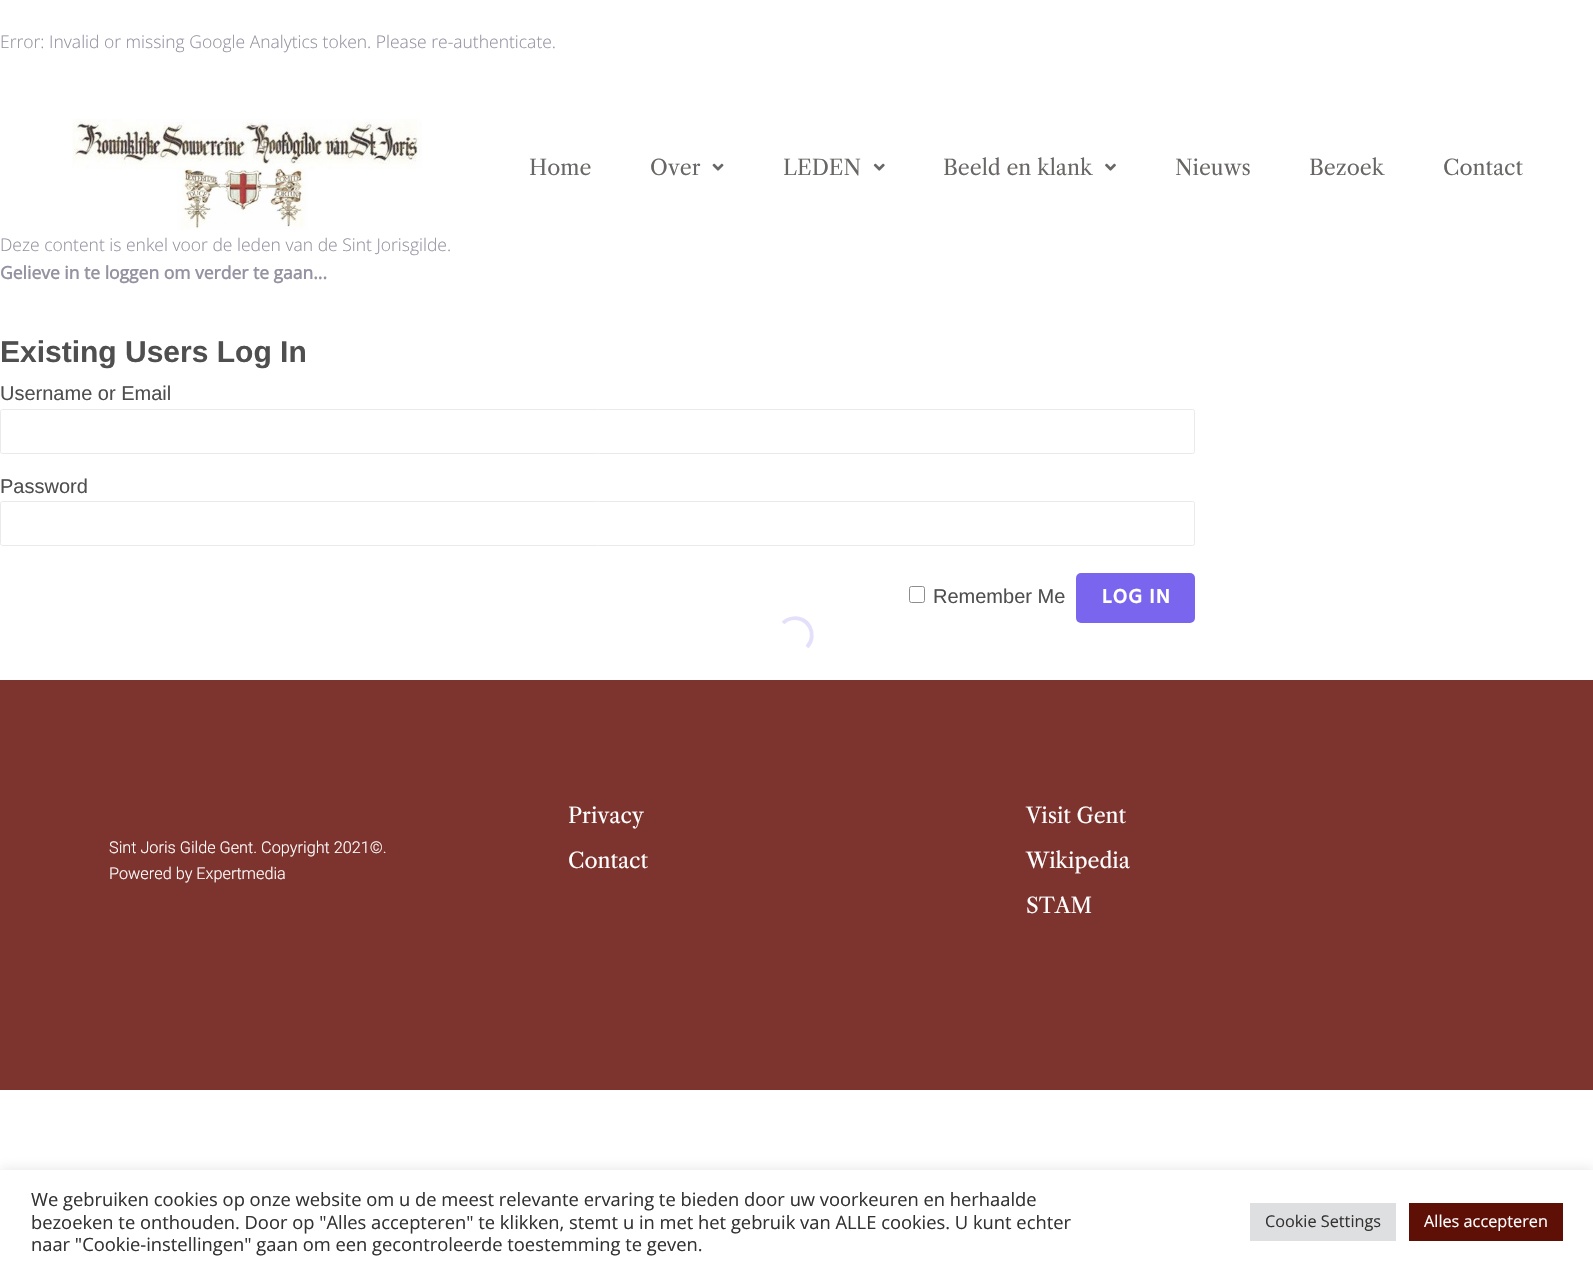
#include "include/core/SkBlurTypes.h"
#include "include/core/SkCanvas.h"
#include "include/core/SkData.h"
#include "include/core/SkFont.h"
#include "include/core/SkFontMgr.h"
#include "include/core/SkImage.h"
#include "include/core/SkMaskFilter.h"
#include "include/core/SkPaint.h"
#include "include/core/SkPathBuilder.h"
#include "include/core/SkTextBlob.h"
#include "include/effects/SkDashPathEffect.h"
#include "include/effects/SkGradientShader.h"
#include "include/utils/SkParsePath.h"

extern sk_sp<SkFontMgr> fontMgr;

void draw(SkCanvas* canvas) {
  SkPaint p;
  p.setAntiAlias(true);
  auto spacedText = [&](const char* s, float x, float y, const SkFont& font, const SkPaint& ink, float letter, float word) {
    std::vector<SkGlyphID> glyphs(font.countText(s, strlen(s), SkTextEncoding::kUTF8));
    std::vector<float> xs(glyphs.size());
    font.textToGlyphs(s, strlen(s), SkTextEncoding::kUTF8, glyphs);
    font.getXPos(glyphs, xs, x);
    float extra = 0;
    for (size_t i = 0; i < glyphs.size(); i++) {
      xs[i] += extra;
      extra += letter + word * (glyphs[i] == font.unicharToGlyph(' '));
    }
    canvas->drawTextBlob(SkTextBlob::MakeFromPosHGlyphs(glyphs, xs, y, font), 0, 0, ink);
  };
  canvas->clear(SK_ColorWHITE);
  canvas->drawImageRect(SkImages::DeferredFromEncodedData(SkData::MakeFromFileName("images/1.png")), SkRect::MakeLTRB(72, 119, 422, 230), SkSamplingOptions());
  canvas->drawImageRect(SkImages::DeferredFromEncodedData(SkData::MakeFromFileName("images/2.png")), SkRect::MakeLTRB(712, 163, 724, 171), SkSamplingOptions());
  canvas->drawImageRect(SkImages::DeferredFromEncodedData(SkData::MakeFromFileName("images/3.png")), SkRect::MakeLTRB(873, 163, 885, 171), SkSamplingOptions());
  canvas->drawImageRect(SkImages::DeferredFromEncodedData(SkData::MakeFromFileName("images/4.png")), SkRect::MakeLTRB(1105, 163, 1116, 171), SkSamplingOptions());
  p.setStyle(SkPaint::kStroke_Style);
  p.setStrokeWidth(1);
  p.setColor(SkColorSetRGB(234, 234, 234));
  canvas->drawRoundRect(SkRect::MakeLTRB(0.5f, 409.5f, 1194.5f, 453.5f), 2, 2, p);
  canvas->drawRoundRect(SkRect::MakeLTRB(0.5f, 501.5f, 1194.5f, 545.5f), 2, 2, p);
  p.setColor(SkColorSetRGB(141, 141, 141));
  canvas->drawRoundRect(SkRect::MakeLTRB(909.5f, 586.5f, 924.5f, 602.5f), 2, 2, p);
  p.setStyle(SkPaint::kFill_Style);
  p.setColor(SkColorSetRGB(122, 101, 238));
  canvas->drawRoundRect(SkRect::MakeLTRB(1076, 573, 1195, 623), 5, 5, p);
  p.setColor(SkColorSetRGB(125, 51, 46));
  canvas->drawRect(SkRect::MakeLTRB(0, 680, 1593, 1090), p);
  p.setStyle(SkPaint::kStroke_Style);
  p.setStrokeWidth(3.8f);
  p.setColor(SkColorSetRGB(228, 224, 251));
  canvas->drawPath(SkPathBuilder().moveTo(783, 623).cubicTo(785.5f, 620.5f, 788.5f, 619, 791.5f, 618.5f).cubicTo(808, 615, 818.5f, 635, 807, 647).detach(), p);
  p.setStyle(SkPaint::kFill_Style);
  p.setColor(SkColorSetARGB(77, 172, 171, 171));
  p.setMaskFilter(SkMaskFilter::MakeBlur(kNormal_SkBlurStyle, 6));
  canvas->drawRect(SkRect::MakeLTRB(0, 1169, 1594, 1271), p);
  p.setMaskFilter(nullptr);
  p.setColor(SK_ColorWHITE);
  canvas->drawRect(SkRect::MakeLTRB(0, 1170, 1593, 1272), p);
  p.setColor(SkColorSetRGB(222, 223, 224));
  canvas->drawRect(SkRect::MakeLTRB(1250, 1203, 1396, 1241), p);
  p.setColor(SkColorSetRGB(94, 16, 6));
  canvas->drawRect(SkRect::MakeLTRB(1409, 1203, 1563, 1241), p);
  SkFont font1(fontMgr->matchFamilyStyle("Open Sans", SkFontStyle(300, SkFontStyle::kNormal_Width, SkFontStyle::kUpright_Slant)), 17.5f);
  font1.setSubpixel(true);
  p.setColor(SkColorSetRGB(149, 147, 161));
  canvas->drawString("Error: Invalid or missing Google Analytics token. Please re-authenticate.", 0, 48, font1, p);
  SkFont font2(fontMgr->matchFamilyStyle("Libre Caslon Text", SkFontStyle::Normal()), 21.25f);
  font2.setSubpixel(true);
  p.setColor(SkColorSetRGB(105, 103, 101));
  canvas->drawString("Home", 529, 175, font2, p);
  canvas->drawString("Over", 650, 175, font2, p);
  canvas->drawString("LEDEN", 783, 175, font2, p);
  canvas->drawString("Beeld en klank", 943, 175, font2, p);
  canvas->drawString("Nieuws", 1175, 175, font2, p);
  canvas->drawString("Bezoek", 1309, 175, font2, p);
  canvas->drawString("Contact", 1443, 175, font2, p);
  p.setColor(SkColorSetRGB(149, 147, 161));
  canvas->drawString("Deze content is enkel voor de leden van de Sint Jorisgilde.", 0, 251, font1, p);
  SkFont font3(fontMgr->matchFamilyStyle("Open Sans", SkFontStyle::Bold()), 17.5f);
  font3.setSubpixel(true);
  canvas->drawString("Gelieve in te loggen om verder te gaan...", 0, 279, font3, p);
  SkFont font4(fontMgr->matchFamilyStyle("Liberation Sans", SkFontStyle::Bold()), 30);
  font4.setSubpixel(true);
  p.setColor(SkColorSetRGB(79, 79, 79));
  canvas->drawString("Existing Users Log In", 0, 362, font4, p);
  SkFont font5(fontMgr->matchFamilyStyle("Liberation Sans", SkFontStyle::Normal()), 20);
  font5.setSubpixel(true);
  canvas->drawString("Username or Email", 0, 400, font5, p);
  canvas->drawString("Password", 0, 493, font5, p);
  canvas->drawString("Remember Me", 933, 603, font5, p);
  SkFont font6(fontMgr->matchFamilyStyle("Hind", SkFontStyle::Bold()), 20);
  font6.setSubpixel(true);
  p.setColor(SK_ColorWHITE);
  spacedText("LOG IN", 1102, 603, font6, p, 1.25f, 0);
  SkFont font7(fontMgr->matchFamilyStyle("Roboto", SkFontStyle(300, SkFontStyle::kNormal_Width, SkFontStyle::kUpright_Slant)), 16.25f);
  font7.setSubpixel(true);
  canvas->drawString("Sint Joris Gilde Gent. Copyright 2021©.", 109, 853, font7, p);
  canvas->drawString("Powered by Expertmedia", 109, 879, font7, p);
  canvas->drawString("Privacy", 568, 823, font2, p);
  canvas->drawString("Contact", 568, 868, font2, p);
  canvas->drawString("Visit Gent", 1026, 823, font2, p);
  canvas->drawString("Wikipedia", 1026, 868, font2, p);
  canvas->drawString("STAM", 1026, 913, font2, p);
  SkFont font8(fontMgr->matchFamilyStyle("Open Sans", SkFontStyle::Normal()), 18.33f);
  font8.setSubpixel(true);
  p.setColor(SkColorSetRGB(51, 51, 51));
  canvas->drawString("We gebruiken cookies op onze website om u de meest relevante ervaring te bieden door uw voorkeuren en herhaalde", 31, 1206, font8, p);
  canvas->drawString("bezoeken te onthouden. Door op \"Alles accepteren\" te klikken, stemt u in met het gebruik van ALLE cookies. U kunt echter", 31, 1229, font8, p);
  canvas->drawString("naar \"Cookie-instellingen\" gaan om een gecontroleerde toestemming te geven.", 31, 1251, font8, p);
  SkFont font9(fontMgr->matchFamilyStyle("Open Sans", SkFontStyle::Normal()), 16.25f);
  font9.setSubpixel(true);
  canvas->drawString("Cookie Settings", 1265, 1227, font9, p);
  p.setColor(SK_ColorWHITE);
  canvas->drawString("Alles accepteren", 1424, 1227, font9, p);
}
